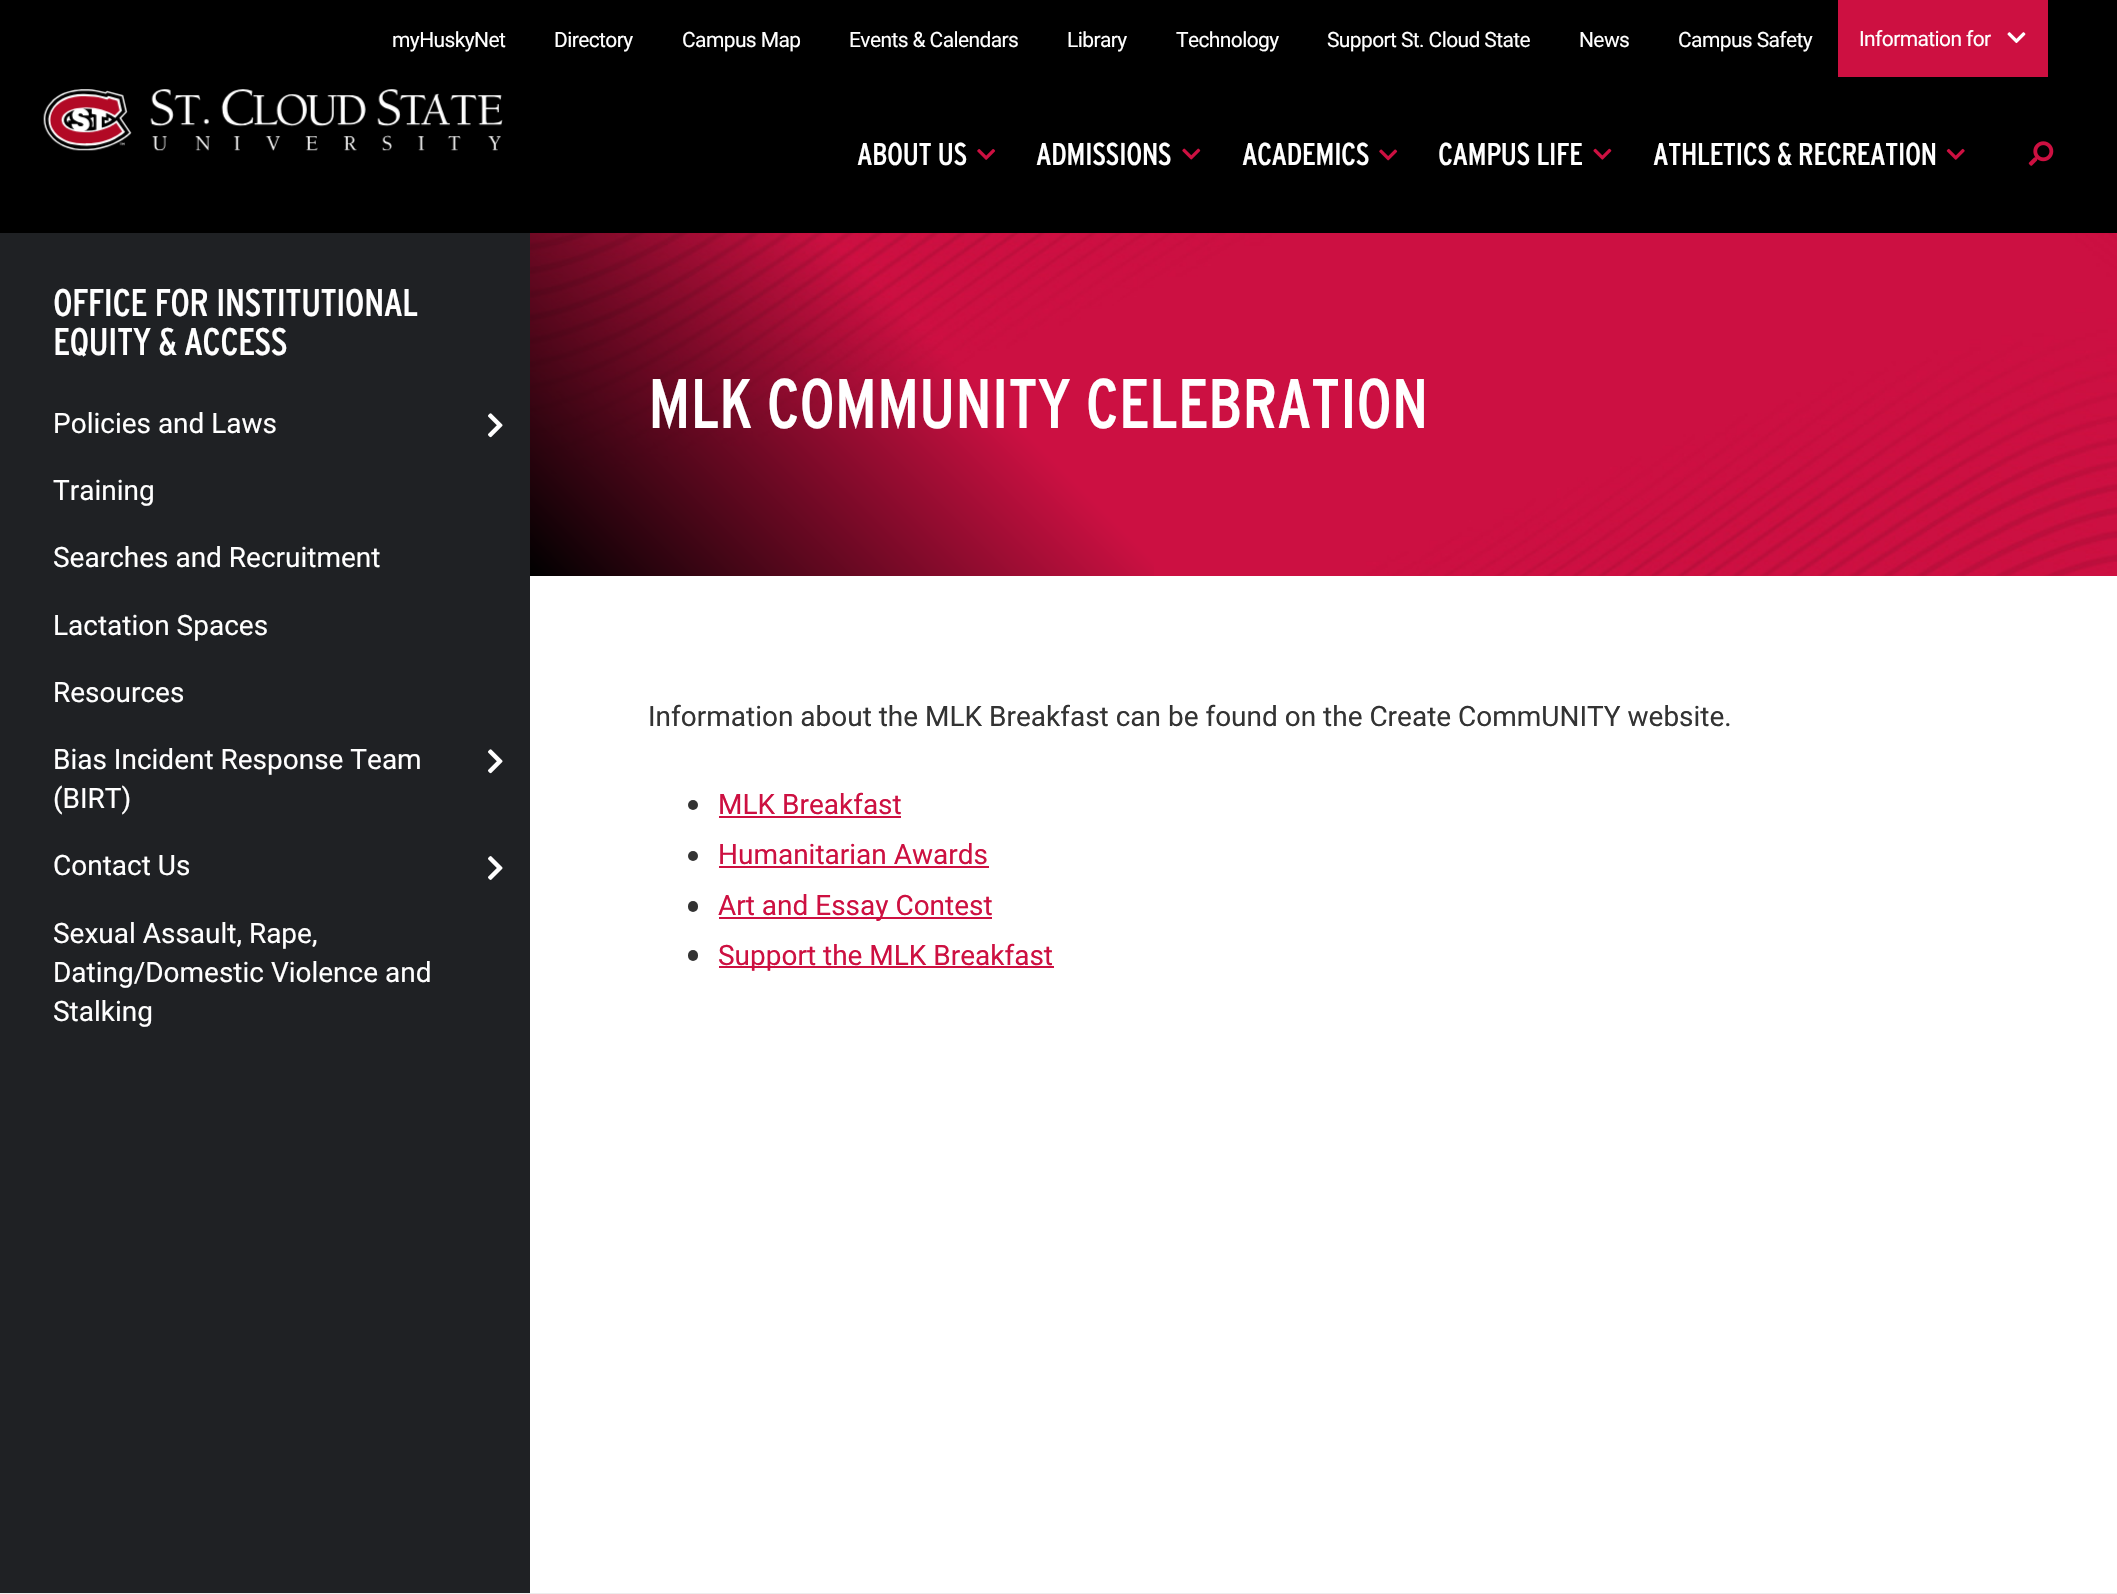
#include "include/core/SkBlurTypes.h"
#include "include/core/SkCanvas.h"
#include "include/core/SkData.h"
#include "include/core/SkFont.h"
#include "include/core/SkFontMgr.h"
#include "include/core/SkImage.h"
#include "include/core/SkMaskFilter.h"
#include "include/core/SkPaint.h"
#include "include/core/SkPathBuilder.h"
#include "include/core/SkTextBlob.h"
#include "include/effects/SkDashPathEffect.h"
#include "include/effects/SkGradientShader.h"
#include "include/utils/SkParsePath.h"

extern sk_sp<SkFontMgr> fontMgr;

void draw(SkCanvas* canvas) {
  SkPaint p;
  p.setAntiAlias(true);
  auto spacedText = [&](const char* s, float x, float y, const SkFont& font, const SkPaint& ink, float letter, float word) {
    std::vector<SkGlyphID> glyphs(font.countText(s, strlen(s), SkTextEncoding::kUTF8));
    std::vector<float> xs(glyphs.size());
    font.textToGlyphs(s, strlen(s), SkTextEncoding::kUTF8, glyphs);
    font.getXPos(glyphs, xs, x);
    float extra = 0;
    for (size_t i = 0; i < glyphs.size(); i++) {
      xs[i] += extra;
      extra += letter + word * (glyphs[i] == font.unicharToGlyph(' '));
    }
    canvas->drawTextBlob(SkTextBlob::MakeFromPosHGlyphs(glyphs, xs, y, font), 0, 0, ink);
  };
  canvas->clear(SK_ColorWHITE);
  p.setColor(SK_ColorBLACK);
  canvas->drawRect(SkRect::MakeLTRB(0, 0, 2117, 233), p);
  p.setColor(SkColorSetRGB(205, 16, 65));
  canvas->drawRect(SkRect::MakeLTRB(1838, 0, 2048, 77), p);
  canvas->drawImageRect(SkImages::DeferredFromEncodedData(SkData::MakeFromFileName("images/1.png")), SkRect::MakeLTRB(2007, 32, 2026, 44), SkSamplingOptions());
  canvas->drawImageRect(SkImages::DeferredFromEncodedData(SkData::MakeFromFileName("images/2.png")), SkRect::MakeLTRB(43, 89, 503, 151), SkSamplingOptions());
  canvas->drawImageRect(SkImages::DeferredFromEncodedData(SkData::MakeFromFileName("images/3.png")), SkRect::MakeLTRB(977, 149, 996, 160), SkSamplingOptions());
  canvas->drawImageRect(SkImages::DeferredFromEncodedData(SkData::MakeFromFileName("images/4.png")), SkRect::MakeLTRB(1182, 148, 1201, 160), SkSamplingOptions());
  canvas->drawImageRect(SkImages::DeferredFromEncodedData(SkData::MakeFromFileName("images/5.png")), SkRect::MakeLTRB(1379, 149, 1398, 161), SkSamplingOptions());
  canvas->drawImageRect(SkImages::DeferredFromEncodedData(SkData::MakeFromFileName("images/6.png")), SkRect::MakeLTRB(1593, 148, 1612, 160), SkSamplingOptions());
  canvas->drawImageRect(SkImages::DeferredFromEncodedData(SkData::MakeFromFileName("images/7.png")), SkRect::MakeLTRB(1946, 148, 1965, 160), SkSamplingOptions());
  canvas->drawImageRect(SkImages::DeferredFromEncodedData(SkData::MakeFromFileName("images/8.png")), SkRect::MakeLTRB(2028, 141, 2054, 166), SkSamplingOptions());
  p.setColor(SkColorSetRGB(31, 33, 36));
  canvas->drawRect(SkRect::MakeLTRB(0, 233, 530, 1593), p);
  canvas->drawImageRect(SkImages::DeferredFromEncodedData(SkData::MakeFromFileName("images/9.png")), SkRect::MakeLTRB(488, 413, 503, 438), SkSamplingOptions());
  canvas->drawImageRect(SkImages::DeferredFromEncodedData(SkData::MakeFromFileName("images/9.png")), SkRect::MakeLTRB(488, 749, 503, 774), SkSamplingOptions());
  canvas->drawImageRect(SkImages::DeferredFromEncodedData(SkData::MakeFromFileName("images/10.png")), SkRect::MakeLTRB(488, 856, 503, 880), SkSamplingOptions());
  p.setColor(SkColorSetRGB(205, 16, 65));
  canvas->drawRect(SkRect::MakeLTRB(530, 233, 2117, 576), p);
  canvas->drawImageRect(SkImages::DeferredFromEncodedData(SkData::MakeFromFileName("images/11.png")), SkRect::MakeLTRB(530, 233, 2117, 576), SkSamplingOptions());
  {
    const SkColor colors[] = {SK_ColorBLACK, SkColorSetARGB(0, 0, 0, 0), SkColorSetARGB(0, 0, 0, 0)};
    const float stops[] = {0, 0.33f, 1};
    const SkPoint ends[] = {{841, 886}, {1807, -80}};
    p.setShader(SkGradientShader::MakeLinear(ends, colors, stops, 3, SkTileMode::kClamp));
    p.setAlpha(255);
  }
  canvas->drawRect(SkRect::MakeLTRB(530, 233, 1154, 576), p);
  p.setShader(nullptr);
  p.setColor(SkColorSetRGB(51, 51, 51));
  canvas->drawCircle(693, 805, 5, p);
  p.setColor(SkColorSetRGB(205, 16, 65));
  canvas->drawRect(SkRect::MakeLTRB(719, 816, 901, 818), p);
  p.setColor(SkColorSetRGB(51, 51, 51));
  canvas->drawCircle(693, 856, 5, p);
  p.setColor(SkColorSetRGB(205, 16, 65));
  canvas->drawRect(SkRect::MakeLTRB(719, 866, 989, 868), p);
  p.setColor(SkColorSetRGB(51, 51, 51));
  canvas->drawRoundRect(SkRect::MakeLTRB(688, 901, 698, 912), 5, 5, p);
  p.setColor(SkColorSetRGB(205, 16, 65));
  canvas->drawRect(SkRect::MakeLTRB(719, 917, 992, 919), p);
  p.setColor(SkColorSetRGB(51, 51, 51));
  canvas->drawRoundRect(SkRect::MakeLTRB(688, 950, 698, 961), 5, 5, p);
  p.setColor(SkColorSetRGB(205, 16, 65));
  canvas->drawRect(SkRect::MakeLTRB(719, 966, 1054, 968), p);
  p.setColor(SkColorSetRGB(237, 237, 237));
  canvas->drawRect(SkRect::MakeLTRB(0, 1593, 2117, 1594), p);
  SkFont font1(fontMgr->matchFamilyStyle("Roboto", SkFontStyle::Normal()), 21);
  font1.setSubpixel(true);
  p.setColor(SK_ColorWHITE);
  spacedText("myHuskyNet", 392, 47, font1, p, -0.6f, 0);
  spacedText("Directory", 554, 47, font1, p, -0.6f, 0);
  spacedText("Campus Map", 682, 47, font1, p, -0.6f, 0);
  spacedText("Events & Calendars", 849, 47, font1, p, -0.6f, 0);
  spacedText("Library", 1067, 47, font1, p, -0.6f, 0);
  spacedText("Technology", 1176, 47, font1, p, -0.6f, 0);
  spacedText("Support St. Cloud State", 1327, 47, font1, p, -0.6f, 0);
  spacedText("News", 1579, 47, font1, p, -0.6f, 0);
  spacedText("Campus Safety", 1678, 47, font1, p, -0.6f, 0);
  spacedText("Information for", 1859, 46, font1, p, -0.6f, 0);
  SkFont font2(fontMgr->matchFamilyStyle("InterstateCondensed", SkFontStyle::Normal()), 31.5f);
  font2.setSubpixel(true);
  spacedText("ABOUT US", 857, 165, font2, p, -0.6f, 0);
  spacedText("ADMISSIONS", 1036, 165, font2, p, -0.6f, 0);
  spacedText("ACADEMICS", 1242, 165, font2, p, -0.6f, 0);
  spacedText("CAMPUS LIFE", 1438, 165, font2, p, -0.6f, 0);
  spacedText("ATHLETICS & RECREATION", 1653, 165, font2, p, -0.6f, 0);
  SkFont font3(fontMgr->matchFamilyStyle("InterstateCondensed", SkFontStyle::Normal()), 38.5f);
  font3.setSubpixel(true);
  spacedText("OFFICE FOR INSTITUTIONAL", 53, 316, font3, p, -0.7f, 0);
  spacedText("EQUITY & ACCESS", 53, 355, font3, p, -0.7f, 0);
  SkFont font4(fontMgr->matchFamilyStyle("Roboto", SkFontStyle::Normal()), 28);
  font4.setSubpixel(true);
  canvas->drawString("Policies and Laws", 53, 433, font4, p);
  canvas->drawString("Training", 53, 500, font4, p);
  canvas->drawString("Searches and Recruitment", 53, 567, font4, p);
  canvas->drawString("Lactation Spaces", 53, 635, font4, p);
  canvas->drawString("Resources", 53, 702, font4, p);
  canvas->drawString("Bias Incident Response Team", 53, 769, font4, p);
  canvas->drawString("(BIRT)", 53, 808, font4, p);
  canvas->drawString("Contact Us", 53, 875, font4, p);
  canvas->drawString("Sexual Assault, Rape,", 53, 943, font4, p);
  canvas->drawString("Dating/Domestic Violence and", 53, 982, font4, p);
  canvas->drawString("Stalking", 53, 1021, font4, p);
  SkFont font5(fontMgr->matchFamilyStyle("InterstateCondensed", SkFontStyle::Normal()), 70);
  font5.setSubpixel(true);
  spacedText("MLK COMMUNITY CELEBRATION", 648, 428, font5, p, -0.7f, 0);
  p.setColor(SkColorSetRGB(51, 51, 51));
  canvas->drawString("Information about the MLK Breakfast can be found on the Create CommUNITY website.", 648, 726, font4, p);
  p.setColor(SkColorSetRGB(205, 16, 65));
  canvas->drawString("MLK Breakfast", 718, 814, font4, p);
  canvas->drawString("Humanitarian Awards", 718, 864, font4, p);
  canvas->drawString("Art and Essay Contest", 718, 915, font4, p);
  canvas->drawString("Support the MLK Breakfast", 718, 965, font4, p);
}
